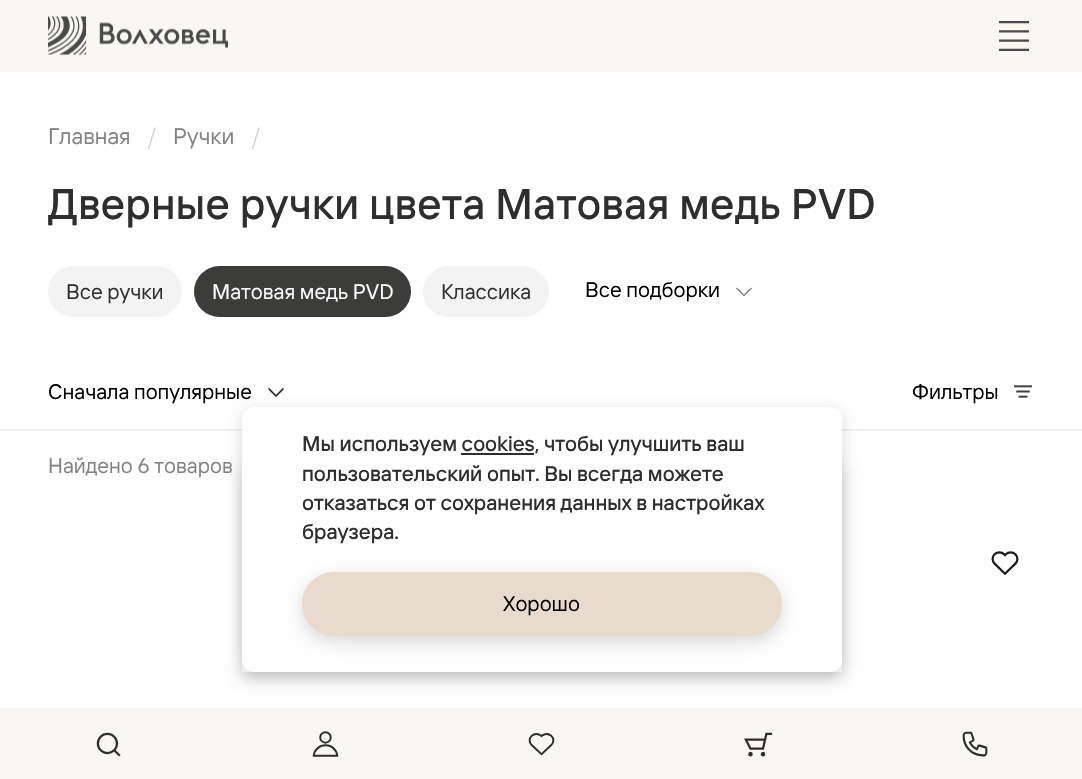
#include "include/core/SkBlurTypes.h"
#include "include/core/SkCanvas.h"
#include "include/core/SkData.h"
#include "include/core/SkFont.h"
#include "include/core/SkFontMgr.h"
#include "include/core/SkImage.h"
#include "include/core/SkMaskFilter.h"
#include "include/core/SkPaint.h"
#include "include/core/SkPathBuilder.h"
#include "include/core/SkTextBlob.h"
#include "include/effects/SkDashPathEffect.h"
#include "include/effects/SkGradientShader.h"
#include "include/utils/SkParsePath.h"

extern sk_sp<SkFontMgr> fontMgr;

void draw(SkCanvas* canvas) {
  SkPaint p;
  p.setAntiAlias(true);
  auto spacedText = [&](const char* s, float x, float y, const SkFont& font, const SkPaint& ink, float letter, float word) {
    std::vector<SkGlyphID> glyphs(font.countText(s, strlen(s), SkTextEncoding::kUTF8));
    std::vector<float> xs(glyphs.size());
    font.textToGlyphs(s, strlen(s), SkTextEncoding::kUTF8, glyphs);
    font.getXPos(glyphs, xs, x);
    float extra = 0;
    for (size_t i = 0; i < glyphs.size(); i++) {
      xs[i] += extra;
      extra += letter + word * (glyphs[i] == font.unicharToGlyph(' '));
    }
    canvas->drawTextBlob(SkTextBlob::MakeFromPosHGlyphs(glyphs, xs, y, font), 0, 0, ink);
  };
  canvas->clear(SK_ColorWHITE);
  p.setColor(SkColorSetRGB(248, 247, 242));
  canvas->drawRect(SkRect::MakeLTRB(0, 0, 1082, 72), p);
  canvas->drawImageRect(SkImages::DeferredFromEncodedData(SkData::MakeFromFileName("images/1.png")), SkRect::MakeLTRB(48, 16, 228, 56), SkSamplingOptions());
  canvas->drawImageRect(SkImages::DeferredFromEncodedData(SkData::MakeFromFileName("images/2.png")), SkRect::MakeLTRB(999, 21, 1029, 51), SkSamplingOptions());
  p.setColor(SkColorSetARGB(38, 0, 0, 0));
  p.setMaskFilter(SkMaskFilter::MakeBlur(kNormal_SkBlurStyle, 7.5f));
  canvas->drawRect(SkRect::MakeLTRB(242, 467, 842, 677), p);
  p.setMaskFilter(nullptr);
  p.setColor(SK_ColorWHITE);
  canvas->drawRect(SkRect::MakeLTRB(242, 660, 842, 672), p);
  p.setColor(SkColorSetRGB(243, 243, 243));
  canvas->drawRoundRect(SkRect::MakeLTRB(48, 266, 182, 317), 25.5f, 25.5f, p);
  p.setColor(SkColorSetRGB(60, 60, 59));
  canvas->drawRoundRect(SkRect::MakeLTRB(194, 266, 411, 317), 25.5f, 25.5f, p);
  p.setColor(SkColorSetRGB(243, 243, 243));
  canvas->drawRoundRect(SkRect::MakeLTRB(423, 266, 549, 317), 25.5f, 25.5f, p);
  canvas->drawImageRect(SkImages::DeferredFromEncodedData(SkData::MakeFromFileName("images/3.png")), SkRect::MakeLTRB(736, 287, 752, 297), SkSamplingOptions());
  canvas->drawImageRect(SkImages::DeferredFromEncodedData(SkData::MakeFromFileName("images/4.png")), SkRect::MakeLTRB(268, 387, 284, 398), SkSamplingOptions());
  canvas->drawImageRect(SkImages::DeferredFromEncodedData(SkData::MakeFromFileName("images/5.png")), SkRect::MakeLTRB(1014, 385, 1032, 398), SkSamplingOptions());
  p.setColor(SkColorSetRGB(240, 240, 240));
  canvas->drawRect(SkRect::MakeLTRB(0, 429, 1082, 431), p);
  canvas->drawImageRect(SkImages::DeferredFromEncodedData(SkData::MakeFromFileName("images/6.png")), SkRect::MakeLTRB(991, 551, 1019, 576), SkSamplingOptions());
  p.setColor(SkColorSetARGB(38, 0, 0, 0));
  p.setMaskFilter(SkMaskFilter::MakeBlur(kNormal_SkBlurStyle, 7.5f));
  canvas->drawRoundRect(SkRect::MakeLTRB(242, 411, 842, 677), 12, 12, p);
  p.setMaskFilter(nullptr);
  p.setColor(SK_ColorWHITE);
  canvas->drawRoundRect(SkRect::MakeLTRB(242, 407, 842, 672), 12, 12, p);
  p.setColor(SkColorSetRGB(46, 46, 45));
  canvas->drawRect(SkRect::MakeLTRB(461, 453, 534, 455), p);
  p.setColor(SkColorSetARGB(38, 0, 0, 0));
  p.setMaskFilter(SkMaskFilter::MakeBlur(kNormal_SkBlurStyle, 9));
  canvas->drawRoundRect(SkRect::MakeLTRB(302, 578, 782, 642), 32, 32, p);
  p.setMaskFilter(nullptr);
  p.setColor(SkColorSetRGB(232, 219, 205));
  canvas->drawRoundRect(SkRect::MakeLTRB(303, 573, 781, 635), 31, 31, p);
  p.setStyle(SkPaint::kStroke_Style);
  p.setStrokeWidth(2);
  canvas->drawRoundRect(SkRect::MakeLTRB(303, 573, 781, 635), 31, 31, p);
  p.setStyle(SkPaint::kFill_Style);
  p.setColor(SkColorSetRGB(248, 247, 242));
  canvas->drawRect(SkRect::MakeLTRB(0, 708, 1082, 779), p);
  canvas->drawImageRect(SkImages::DeferredFromEncodedData(SkData::MakeFromFileName("images/7.png")), SkRect::MakeLTRB(96, 732, 121, 757), SkSamplingOptions());
  canvas->drawImageRect(SkImages::DeferredFromEncodedData(SkData::MakeFromFileName("images/8.png")), SkRect::MakeLTRB(312, 731, 339, 757), SkSamplingOptions());
  canvas->drawImageRect(SkImages::DeferredFromEncodedData(SkData::MakeFromFileName("images/9.png")), SkRect::MakeLTRB(528, 733, 555, 756), SkSamplingOptions());
  canvas->drawImageRect(SkImages::DeferredFromEncodedData(SkData::MakeFromFileName("images/10.png")), SkRect::MakeLTRB(744, 732, 773, 757), SkSamplingOptions());
  canvas->drawImageRect(SkImages::DeferredFromEncodedData(SkData::MakeFromFileName("images/11.png")), SkRect::MakeLTRB(962, 731, 988, 757), SkSamplingOptions());
  SkFont font1(fontMgr->matchFamilyStyle("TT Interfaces", SkFontStyle::Normal()), 22.5f);
  font1.setSubpixel(true);
  p.setColor(SkColorSetRGB(130, 130, 130));
  canvas->drawString("Главная", 48, 144, font1, p);
  SkFont font2(fontMgr->matchFamilyStyle("TT Interfaces", SkFontStyle(300, SkFontStyle::kNormal_Width, SkFontStyle::kUpright_Slant)), 22.5f);
  font2.setSubpixel(true);
  p.setColor(SkColorSetRGB(205, 205, 205));
  canvas->drawString("/", 148, 144, font2, p);
  p.setColor(SkColorSetRGB(130, 130, 130));
  canvas->drawString("Ручки", 173, 144, font1, p);
  p.setColor(SkColorSetRGB(205, 205, 205));
  canvas->drawString("/", 252, 144, font2, p);
  SkFont font3(fontMgr->matchFamilyStyle("TT Interfaces", SkFontStyle(500, SkFontStyle::kNormal_Width, SkFontStyle::kUpright_Slant)), 42.7f);
  font3.setSubpixel(true);
  p.setColor(SkColorSetRGB(46, 46, 45));
  spacedText("Дверные ручки цвета Матовая медь PVD", 48, 219, font3, p, 0.45f, 0);
  SkFont font4(fontMgr->matchFamilyStyle("TT Interfaces", SkFontStyle::Normal()), 21);
  font4.setSubpixel(true);
  canvas->drawString("Все ручки", 66, 299, font4, p);
  p.setColor(SK_ColorWHITE);
  canvas->drawString("Матовая медь PVD", 212, 299, font4, p);
  p.setColor(SkColorSetRGB(46, 46, 45));
  canvas->drawString("Классика", 441, 299, font4, p);
  p.setColor(SK_ColorBLACK);
  canvas->drawString("Все подборки", 585, 297, font4, p);
  canvas->drawString("Сначала популярные", 48, 399, font4, p);
  canvas->drawString("Фильтры", 912, 399, font4, p);
  p.setColor(SkColorSetRGB(130, 130, 130));
  canvas->drawString("Найдено 6 товаров", 48, 473, font4, p);
  SkFont font5(fontMgr->matchFamilyStyle("TT Interfaces", SkFontStyle(500, SkFontStyle::kNormal_Width, SkFontStyle::kUpright_Slant)), 21);
  font5.setSubpixel(true);
  p.setColor(SkColorSetRGB(46, 46, 45));
  canvas->drawString("Мы используем cookies, чтобы улучшить ваш", 302, 451, font5, p);
  canvas->drawString("пользовательский опыт. Вы всегда можете", 302, 481, font5, p);
  canvas->drawString("отказаться от сохранения данных в настройках", 302, 510, font5, p);
  canvas->drawString("браузера.", 302, 539, font5, p);
  p.setColor(SK_ColorBLACK);
  canvas->drawString("Хорошо", 503, 611, font4, p);
}
